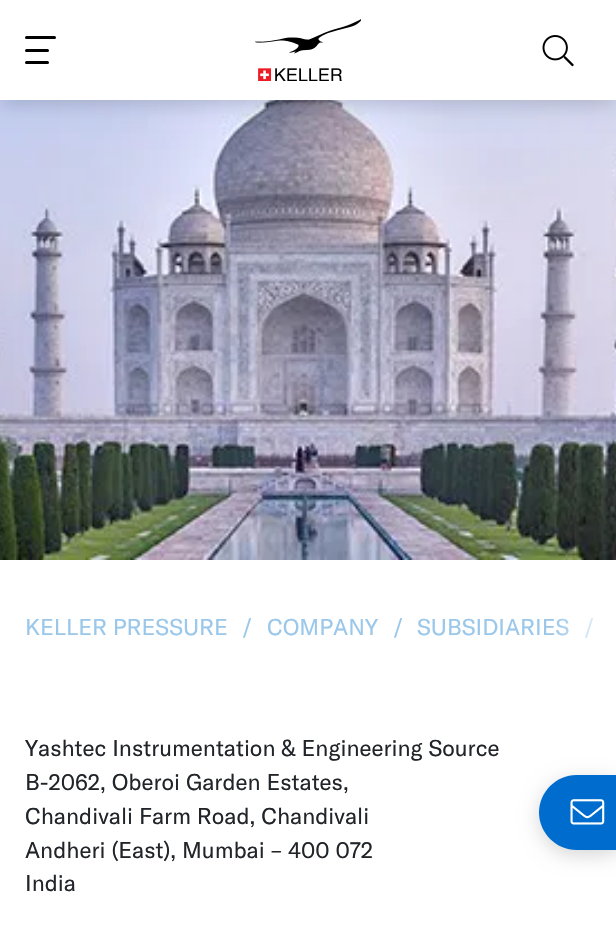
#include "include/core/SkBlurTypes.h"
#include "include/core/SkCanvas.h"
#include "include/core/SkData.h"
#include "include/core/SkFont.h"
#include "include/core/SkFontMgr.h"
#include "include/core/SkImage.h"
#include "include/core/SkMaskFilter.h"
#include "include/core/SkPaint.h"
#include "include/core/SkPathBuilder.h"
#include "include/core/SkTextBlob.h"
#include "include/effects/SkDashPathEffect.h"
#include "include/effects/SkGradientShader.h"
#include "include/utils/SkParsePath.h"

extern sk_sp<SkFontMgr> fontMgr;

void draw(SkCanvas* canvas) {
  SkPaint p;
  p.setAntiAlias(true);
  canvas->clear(SK_ColorWHITE);
  canvas->drawImageRect(SkImages::DeferredFromEncodedData(SkData::MakeFromFileName("images/3.png")), SkRect::MakeLTRB(0, 100, 616, 560), SkSamplingOptions());
  p.setColor(SkColorSetARGB(41, 0, 0, 0));
  p.setMaskFilter(SkMaskFilter::MakeBlur(kNormal_SkBlurStyle, 9.5f));
  canvas->drawRect(SkRect::MakeLTRB(0, -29, 616, 105), p);
  p.setMaskFilter(nullptr);
  p.setColor(SK_ColorWHITE);
  canvas->drawRect(SkRect::MakeLTRB(0, 0, 616, 100), p);
  p.setColor(SK_ColorBLACK);
  canvas->drawRoundRect(SkRect::MakeLTRB(25, 36, 56, 39), 1.5f, 1.5f, p);
  canvas->drawRoundRect(SkRect::MakeLTRB(25, 49, 49, 52), 1.5f, 1.5f, p);
  canvas->drawRoundRect(SkRect::MakeLTRB(25, 61, 49, 64), 1.5f, 1.5f, p);
  canvas->drawImageRect(SkImages::DeferredFromEncodedData(SkData::MakeFromFileName("images/1.png")), SkRect::MakeLTRB(255, 19, 361, 81), SkSamplingOptions());
  canvas->drawImageRect(SkImages::DeferredFromEncodedData(SkData::MakeFromFileName("images/2.png")), SkRect::MakeLTRB(542, 35, 574, 67), SkSamplingOptions());
  p.setColor(SkColorSetARGB(41, 0, 0, 0));
  p.setMaskFilter(SkMaskFilter::MakeBlur(kNormal_SkBlurStyle, 9.5f));
  canvas->drawRoundRect(SkRect::MakeLTRB(539, 780, 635, 855), 37.5f, 37.5f, p);
  p.setMaskFilter(nullptr);
  p.setColor(SkColorSetRGB(0, 108, 205));
  canvas->drawPath(SkPathBuilder().moveTo(576.5f, 775).lineTo(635, 775).lineTo(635, 850).lineTo(576.5f, 850).cubicTo(556, 850, 539, 833, 539, 812.5f).cubicTo(539, 792, 556, 775, 576.5f, 775).close().detach(), p);
  canvas->drawImageRect(SkImages::DeferredFromEncodedData(SkData::MakeFromFileName("images/4.png")), SkRect::MakeLTRB(570, 799, 605, 825), SkSamplingOptions());
  SkFont font1(fontMgr->matchFamilyStyle("GT America", SkFontStyle::Normal()), 22.5f);
  font1.setSubpixel(true);
  p.setColor(SkColorSetRGB(155, 200, 234));
  canvas->drawString("KELLER PRESSURE", 25, 635, font1, p);
  canvas->drawString("/", 242, 635, font1, p);
  canvas->drawString("COMPANY", 267, 635, font1, p);
  canvas->drawString("/", 393, 635, font1, p);
  canvas->drawString("SUBSIDIARIES", 417, 635, font1, p);
  canvas->drawString("/", 584, 635, font1, p);
  {
    const SkColor colors[] = {SK_ColorWHITE, SkColorSetARGB(0, 255, 255, 255)};
    const float stops[] = {0, 1};
    const SkPoint ends[] = {{616, 627}, {554, 627}};
    p.setShader(SkGradientShader::MakeLinear(ends, colors, stops, 2, SkTileMode::kClamp));
    p.setAlpha(255);
  }
  canvas->drawRect(SkRect::MakeLTRB(557, 617, 594, 638), p);
  p.setShader(nullptr);
  p.setColor(SkColorSetRGB(33, 37, 41));
  canvas->drawString("Yashtec Instrumentation & Engineering Source", 25, 756, font1, p);
  canvas->drawString("B-2062, Oberoi Garden Estates,", 25, 790, font1, p);
  canvas->drawString("Chandivali Farm Road, Chandivali", 25, 824, font1, p);
  canvas->drawString("Andheri (East), Mumbai – 400 072", 25, 858, font1, p);
  canvas->drawString("India", 25, 891, font1, p);
}
